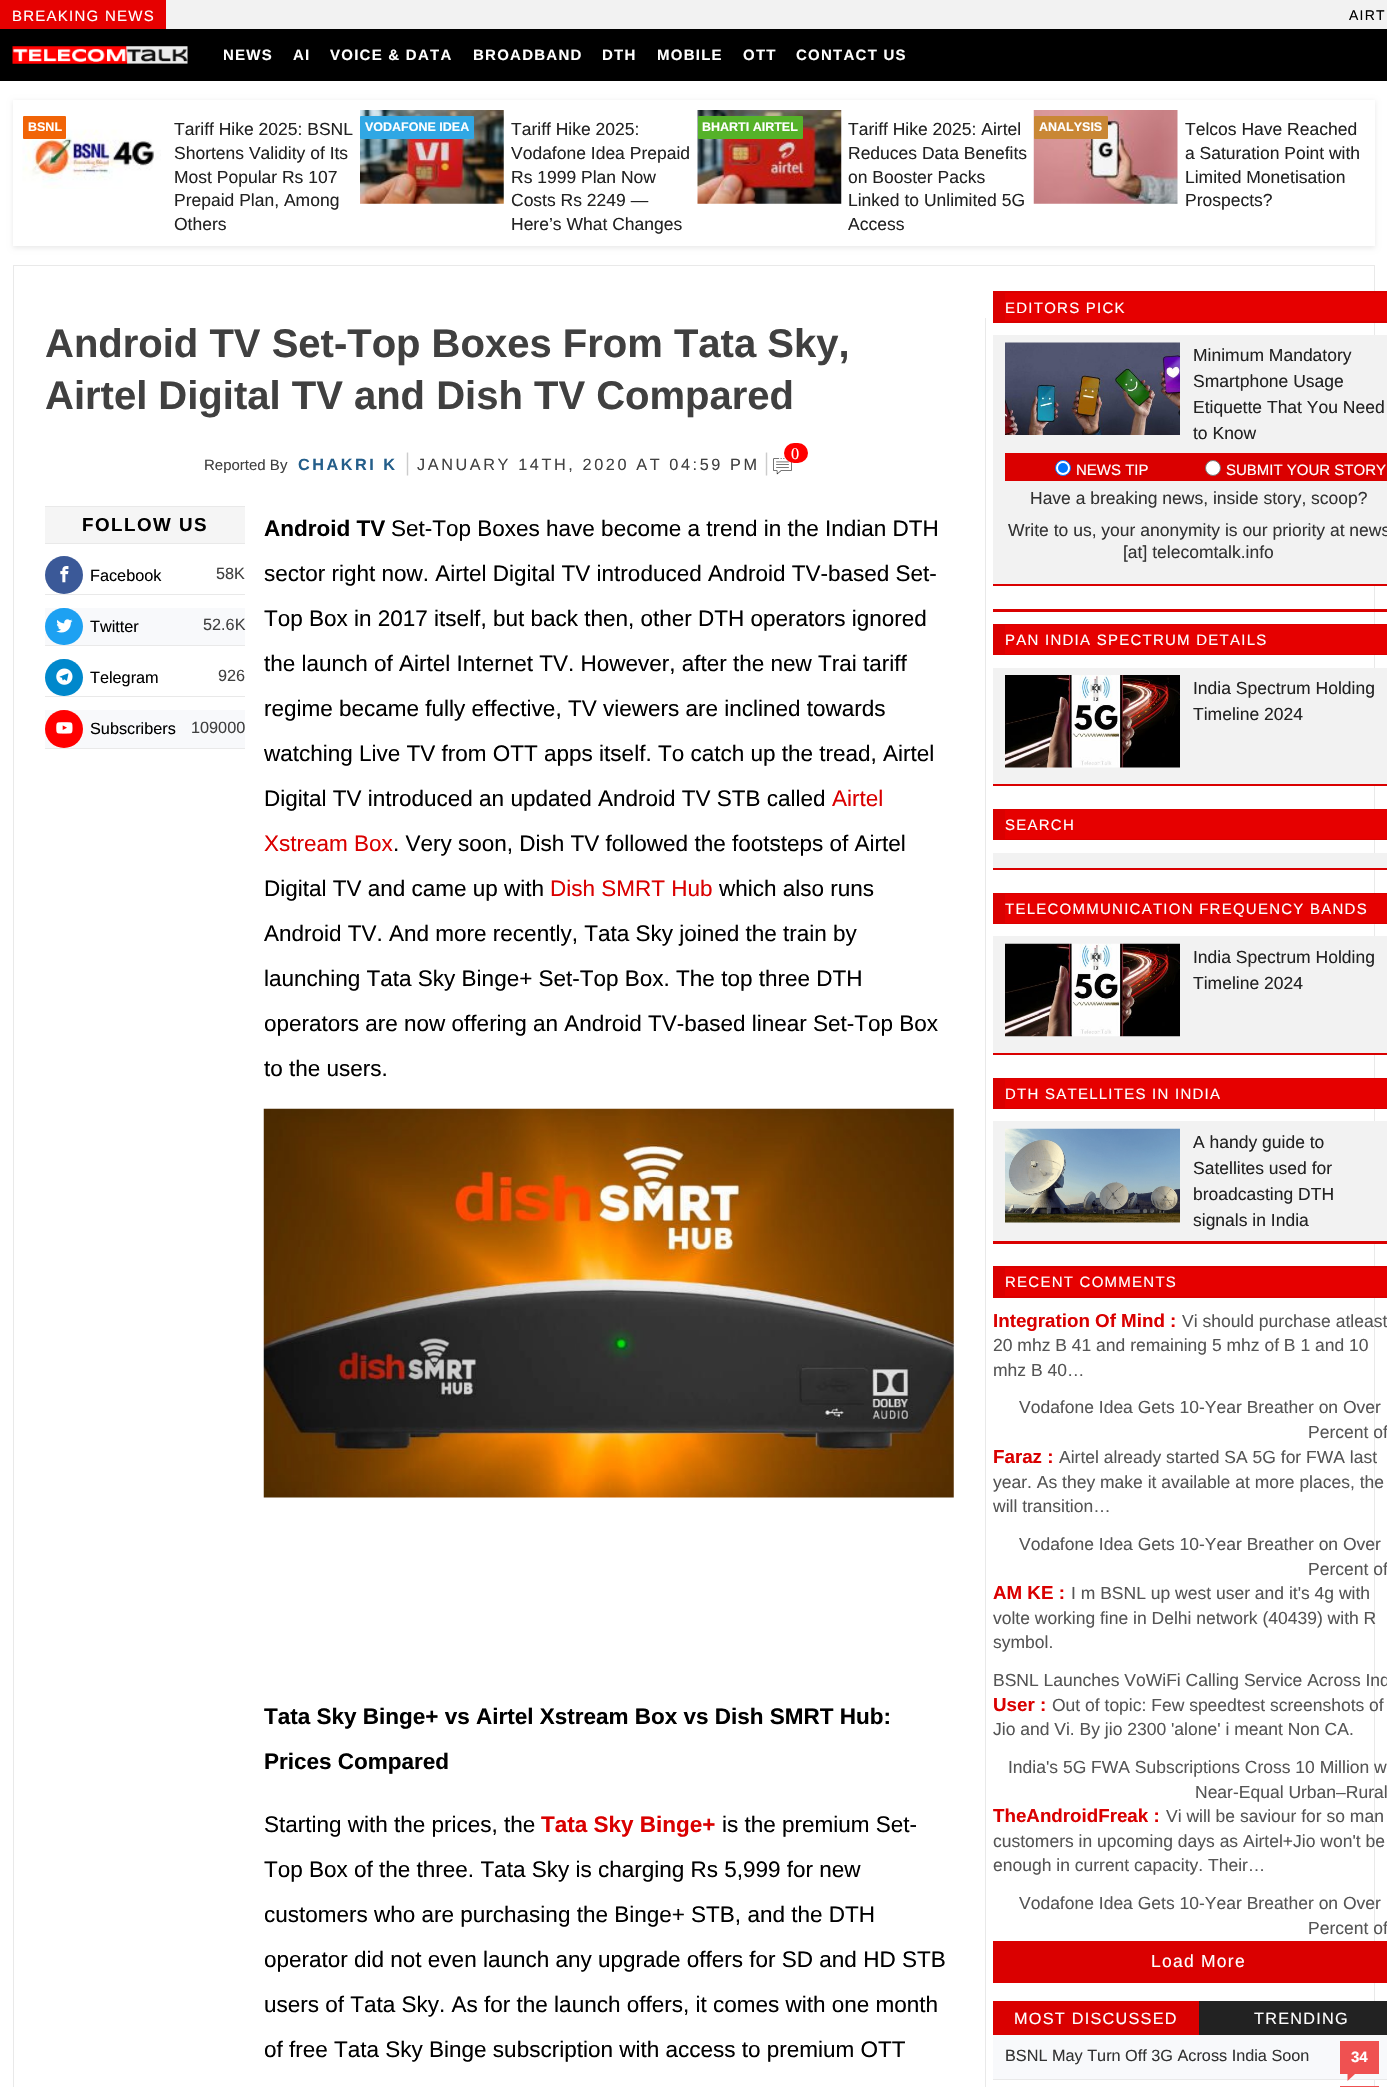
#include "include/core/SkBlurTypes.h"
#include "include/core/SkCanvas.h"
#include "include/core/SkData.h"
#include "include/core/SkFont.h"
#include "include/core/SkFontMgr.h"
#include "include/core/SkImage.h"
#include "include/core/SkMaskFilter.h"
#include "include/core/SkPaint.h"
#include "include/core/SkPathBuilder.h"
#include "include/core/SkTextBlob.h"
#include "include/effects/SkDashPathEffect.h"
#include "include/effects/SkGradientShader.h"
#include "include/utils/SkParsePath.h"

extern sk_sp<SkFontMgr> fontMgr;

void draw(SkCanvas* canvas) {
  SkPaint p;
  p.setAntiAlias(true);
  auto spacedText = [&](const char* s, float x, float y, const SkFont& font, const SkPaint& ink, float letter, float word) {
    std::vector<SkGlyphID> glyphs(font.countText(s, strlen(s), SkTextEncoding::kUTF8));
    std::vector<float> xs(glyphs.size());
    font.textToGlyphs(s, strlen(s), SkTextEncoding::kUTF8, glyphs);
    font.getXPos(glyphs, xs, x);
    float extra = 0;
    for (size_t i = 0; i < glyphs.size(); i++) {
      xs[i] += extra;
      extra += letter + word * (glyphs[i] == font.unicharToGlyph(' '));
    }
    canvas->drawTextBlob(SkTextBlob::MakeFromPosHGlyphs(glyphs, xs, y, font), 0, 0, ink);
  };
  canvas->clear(SK_ColorWHITE);
  p.setColor(SkColorSetRGB(242, 242, 242));
  canvas->drawRect(SkRect::MakeLTRB(166, 0, 1387, 29), p);
  p.setColor(SkColorSetRGB(230, 0, 0));
  canvas->drawRect(SkRect::MakeLTRB(0, 0, 166, 29), p);
  p.setColor(SK_ColorBLACK);
  canvas->drawRect(SkRect::MakeLTRB(0, 29, 1387, 81), p);
  canvas->drawImageRect(SkImages::DeferredFromEncodedData(SkData::MakeFromFileName("images/1.png")), SkRect::MakeLTRB(12, 46, 188, 64), SkSamplingOptions());
  canvas->save();
  canvas->clipPath(SkPathBuilder(SkPathFillType::kEvenOdd).moveTo(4, 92).lineTo(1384, 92).lineTo(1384, 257).lineTo(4, 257).close().moveTo(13, 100).lineTo(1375, 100).lineTo(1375, 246).lineTo(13, 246).close().detach(), true);
  p.setColor(SkColorSetRGB(233, 233, 233));
  p.setMaskFilter(SkMaskFilter::MakeBlur(kNormal_SkBlurStyle, 2.5f));
  canvas->drawRect(SkRect::MakeLTRB(13, 101, 1375, 248), p);
  p.setMaskFilter(nullptr);
  canvas->restore();
  canvas->drawImageRect(SkImages::DeferredFromEncodedData(SkData::MakeFromFileName("images/2.png")), SkRect::MakeLTRB(22, 129, 161, 189), SkSamplingOptions());
  p.setColor(SkColorSetRGB(241, 100, 7));
  canvas->drawRoundRect(SkRect::MakeLTRB(23, 116, 66, 139), 1, 1, p);
  canvas->drawImageRect(SkImages::DeferredFromEncodedData(SkData::MakeFromFileName("images/3.png")), SkRect::MakeLTRB(360, 110, 504, 204), SkSamplingOptions());
  p.setColor(SkColorSetRGB(48, 167, 228));
  canvas->drawRoundRect(SkRect::MakeLTRB(360, 116, 474, 139), 1, 1, p);
  canvas->drawImageRect(SkImages::DeferredFromEncodedData(SkData::MakeFromFileName("images/4.png")), SkRect::MakeLTRB(697, 110, 842, 204), SkSamplingOptions());
  p.setColor(SkColorSetRGB(85, 178, 41));
  canvas->drawRoundRect(SkRect::MakeLTRB(698, 116, 803, 139), 1, 1, p);
  canvas->drawImageRect(SkImages::DeferredFromEncodedData(SkData::MakeFromFileName("images/5.png")), SkRect::MakeLTRB(1033, 110, 1178, 204), SkSamplingOptions());
  p.setColor(SkColorSetRGB(201, 135, 53));
  canvas->drawRoundRect(SkRect::MakeLTRB(1034, 116, 1108, 139), 1, 1, p);
  p.setStyle(SkPaint::kStroke_Style);
  p.setStrokeWidth(1);
  p.setColor(SkColorSetRGB(233, 233, 233));
  canvas->drawRect(SkRect::MakeLTRB(13.5f, 265.5f, 1374.5f, 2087.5f), p);
  p.setStyle(SkPaint::kFill_Style);
  canvas->drawRect(SkRect::MakeLTRB(985, 318, 986, 2087), p);
  canvas->drawImageRect(SkImages::DeferredFromEncodedData(SkData::MakeFromFileName("images/6.png")), SkRect::MakeLTRB(773, 458, 792, 475), SkSamplingOptions());
  p.setColor(SkColorSetRGB(255, 0, 0));
  canvas->drawRoundRect(SkRect::MakeLTRB(784, 443, 808, 463), 10, 10, p);
  p.setColor(SkColorSetRGB(245, 245, 245));
  canvas->drawRect(SkRect::MakeLTRB(45, 507, 245, 543), p);
  p.setColor(SkColorSetRGB(233, 233, 233));
  canvas->drawRect(SkRect::MakeLTRB(45, 506, 245, 507), p);
  canvas->drawRect(SkRect::MakeLTRB(45, 543, 245, 544), p);
  canvas->drawRect(SkRect::MakeLTRB(45, 594, 245, 595), p);
  p.setColor(SkColorSetRGB(59, 89, 152));
  canvas->drawCircle(64, 575, 19, p);
  canvas->drawImageRect(SkImages::DeferredFromEncodedData(SkData::MakeFromFileName("images/7.png")), SkRect::MakeLTRB(60, 566, 69, 583), SkSamplingOptions());
  p.setColor(SkColorSetRGB(248, 249, 251));
  canvas->drawRect(SkRect::MakeLTRB(45, 608, 245, 645), p);
  p.setColor(SkColorSetRGB(233, 233, 233));
  canvas->drawRect(SkRect::MakeLTRB(45, 645, 245, 646), p);
  p.setColor(SkColorSetRGB(29, 161, 242));
  canvas->drawRoundRect(SkRect::MakeLTRB(45, 608, 83, 645), 18.5f, 18.5f, p);
  canvas->drawImageRect(SkImages::DeferredFromEncodedData(SkData::MakeFromFileName("images/8.png")), SkRect::MakeLTRB(56, 619, 73, 633), SkSamplingOptions());
  p.setColor(SkColorSetRGB(233, 233, 233));
  canvas->drawRect(SkRect::MakeLTRB(45, 696, 245, 697), p);
  p.setColor(SkColorSetRGB(0, 136, 204));
  canvas->drawRoundRect(SkRect::MakeLTRB(45, 659, 83, 696), 18.5f, 18.5f, p);
  canvas->drawImageRect(SkImages::DeferredFromEncodedData(SkData::MakeFromFileName("images/9.png")), SkRect::MakeLTRB(56, 668, 73, 685), SkSamplingOptions());
  p.setColor(SkColorSetRGB(248, 249, 251));
  canvas->drawRect(SkRect::MakeLTRB(45, 710, 245, 748), p);
  p.setColor(SkColorSetRGB(233, 233, 233));
  canvas->drawRect(SkRect::MakeLTRB(45, 748, 245, 749), p);
  p.setColor(SkColorSetRGB(255, 0, 0));
  canvas->drawCircle(64, 729, 19, p);
  canvas->drawImageRect(SkImages::DeferredFromEncodedData(SkData::MakeFromFileName("images/10.png")), SkRect::MakeLTRB(56, 722, 73, 734), SkSamplingOptions());
  canvas->drawImageRect(SkImages::DeferredFromEncodedData(SkData::MakeFromFileName("images/11.png")), SkRect::MakeLTRB(263, 1108, 954, 1498), SkSamplingOptions());
  p.setColor(SkColorSetRGB(218, 0, 0));
  canvas->drawRect(SkRect::MakeLTRB(993, 291, 1387, 323), p);
  p.setColor(SkColorSetRGB(230, 0, 0));
  canvas->drawRect(SkRect::MakeLTRB(1005, 293, 1387, 321), p);
  p.setColor(SkColorSetRGB(218, 0, 0));
  canvas->drawRect(SkRect::MakeLTRB(993, 584, 1387, 586), p);
  p.setColor(SkColorSetRGB(242, 242, 242));
  canvas->drawRect(SkRect::MakeLTRB(993, 335, 1387, 584), p);
  canvas->drawImageRect(SkImages::DeferredFromEncodedData(SkData::MakeFromFileName("images/12.png")), SkRect::MakeLTRB(1005, 342, 1180, 435), SkSamplingOptions());
  p.setColor(SkColorSetRGB(218, 0, 0));
  canvas->drawRect(SkRect::MakeLTRB(1005, 453, 1387, 481), p);
  p.setColor(SK_ColorWHITE);
  canvas->drawCircle(1063, 468, 7.5f, p);
  p.setStyle(SkPaint::kStroke_Style);
  p.setColor(SkColorSetRGB(0, 117, 255));
  canvas->drawCircle(1063, 468, 7.5f, p);
  p.setStyle(SkPaint::kFill_Style);
  canvas->drawCircle(1063, 468, 5, p);
  p.setColor(SK_ColorWHITE);
  canvas->drawCircle(1213, 468, 7.5f, p);
  p.setStyle(SkPaint::kStroke_Style);
  p.setColor(SkColorSetRGB(118, 118, 118));
  canvas->drawCircle(1213, 468, 7.5f, p);
  p.setStyle(SkPaint::kFill_Style);
  p.setColor(SkColorSetRGB(218, 0, 0));
  canvas->drawRect(SkRect::MakeLTRB(993, 609, 1387, 612), p);
  canvas->drawRect(SkRect::MakeLTRB(993, 624, 1387, 655), p);
  p.setColor(SkColorSetRGB(230, 0, 0));
  canvas->drawRect(SkRect::MakeLTRB(1005, 625, 1387, 654), p);
  p.setColor(SkColorSetRGB(218, 0, 0));
  canvas->drawRect(SkRect::MakeLTRB(993, 784, 1387, 786), p);
  p.setColor(SkColorSetRGB(242, 242, 242));
  canvas->drawRect(SkRect::MakeLTRB(993, 668, 1387, 784), p);
  canvas->drawImageRect(SkImages::DeferredFromEncodedData(SkData::MakeFromFileName("images/13.png")), SkRect::MakeLTRB(1005, 675, 1180, 768), SkSamplingOptions());
  p.setColor(SkColorSetRGB(218, 0, 0));
  canvas->drawRect(SkRect::MakeLTRB(993, 809, 1387, 840), p);
  p.setColor(SkColorSetRGB(230, 0, 0));
  canvas->drawRect(SkRect::MakeLTRB(1005, 810, 1387, 839), p);
  p.setColor(SkColorSetRGB(218, 0, 0));
  canvas->drawRect(SkRect::MakeLTRB(993, 868, 1387, 870), p);
  p.setColor(SkColorSetRGB(242, 242, 242));
  canvas->drawRect(SkRect::MakeLTRB(993, 853, 1387, 868), p);
  p.setColor(SkColorSetRGB(218, 0, 0));
  canvas->drawRect(SkRect::MakeLTRB(993, 893, 1387, 924), p);
  p.setColor(SkColorSetRGB(230, 0, 0));
  canvas->drawRect(SkRect::MakeLTRB(1005, 894, 1387, 923), p);
  p.setColor(SkColorSetRGB(218, 0, 0));
  canvas->drawRect(SkRect::MakeLTRB(993, 1053, 1387, 1055), p);
  p.setColor(SkColorSetRGB(242, 242, 242));
  canvas->drawRect(SkRect::MakeLTRB(993, 936, 1387, 1053), p);
  canvas->drawImageRect(SkImages::DeferredFromEncodedData(SkData::MakeFromFileName("images/14.png")), SkRect::MakeLTRB(1005, 943, 1180, 1037), SkSamplingOptions());
  p.setColor(SkColorSetRGB(218, 0, 0));
  canvas->drawRect(SkRect::MakeLTRB(993, 1078, 1387, 1109), p);
  p.setColor(SkColorSetRGB(230, 0, 0));
  canvas->drawRect(SkRect::MakeLTRB(1005, 1079, 1387, 1108), p);
  p.setColor(SkColorSetRGB(218, 0, 0));
  canvas->drawRect(SkRect::MakeLTRB(993, 1241, 1387, 1244), p);
  p.setColor(SkColorSetRGB(242, 242, 242));
  canvas->drawRect(SkRect::MakeLTRB(993, 1121, 1387, 1241), p);
  canvas->drawImageRect(SkImages::DeferredFromEncodedData(SkData::MakeFromFileName("images/15.png")), SkRect::MakeLTRB(1005, 1128, 1180, 1223), SkSamplingOptions());
  p.setColor(SkColorSetRGB(218, 0, 0));
  canvas->drawRect(SkRect::MakeLTRB(993, 1266, 1387, 1298), p);
  p.setColor(SkColorSetRGB(230, 0, 0));
  canvas->drawRect(SkRect::MakeLTRB(1005, 1268, 1387, 1296), p);
  p.setColor(SkColorSetRGB(218, 0, 0));
  canvas->drawRect(SkRect::MakeLTRB(993, 1941, 1387, 1983), p);
  canvas->drawRect(SkRect::MakeLTRB(993, 2001, 1199, 2035), p);
  p.setColor(SkColorSetRGB(34, 34, 34));
  canvas->drawRect(SkRect::MakeLTRB(1199, 2001, 1387, 2035), p);
  p.setColor(SkColorSetRGB(248, 249, 251));
  canvas->drawRect(SkRect::MakeLTRB(993, 2035, 1387, 2079), p);
  p.setColor(SkColorSetRGB(233, 233, 233));
  canvas->drawRect(SkRect::MakeLTRB(993, 2079, 1387, 2080), p);
  p.setColor(SkColorSetRGB(239, 81, 81));
  canvas->drawRect(SkRect::MakeLTRB(1340, 2041, 1379, 2074), p);
  canvas->drawPath(SkPathBuilder().moveTo(1347.5f, 2081).lineTo(1347.5f, 2074).lineTo(1355, 2074).close().detach(), p);
  canvas->drawRect(SkRect::MakeLTRB(1340, 2086, 1379, 2087), p);
  SkFont font1(fontMgr->matchFamilyStyle("Liberation Sans", SkFontStyle::Normal()), 15);
  font1.setSubpixel(true);
  p.setColor(SK_ColorWHITE);
  spacedText("BREAKING NEWS", 12, 21, font1, p, 1.25f, 0);
  SkFont font2(fontMgr->matchFamilyStyle("Liberation Sans", SkFontStyle::Normal()), 14);
  font2.setSubpixel(true);
  p.setColor(SK_ColorBLACK);
  spacedText("AIRT", 1349, 20, font2, p, 1.25f, 0);
  SkFont font3(fontMgr->matchFamilyStyle("Liberation Sans", SkFontStyle::Bold()), 15);
  font3.setSubpixel(true);
  p.setColor(SK_ColorWHITE);
  spacedText("NEWS", 223, 60, font3, p, 1.25f, 0);
  spacedText("AI", 293, 60, font3, p, 1.25f, 0);
  spacedText("VOICE & DATA", 330, 60, font3, p, 1.25f, 0);
  spacedText("BROADBAND", 473, 60, font3, p, 1.25f, 0);
  spacedText("DTH", 602, 60, font3, p, 1.25f, 0);
  spacedText("MOBILE", 657, 60, font3, p, 1.25f, 0);
  spacedText("OTT", 743, 60, font3, p, 1.25f, 0);
  spacedText("CONTACT US", 796, 60, font3, p, 1.25f, 0);
  SkFont font4(fontMgr->matchFamilyStyle("Liberation Sans", SkFontStyle::Bold()), 12.5f);
  font4.setSubpixel(true);
  canvas->drawString("BSNL", 28, 131, font4, p);
  SkFont font5(fontMgr->matchFamilyStyle("Liberation Sans", SkFontStyle::Normal()), 17.5f);
  font5.setSubpixel(true);
  p.setColor(SkColorSetRGB(34, 34, 34));
  canvas->drawString("Tariff Hike 2025: BSNL", 174, 135, font5, p);
  canvas->drawString("Shortens Validity of Its", 174, 159, font5, p);
  canvas->drawString("Most Popular Rs 107", 174, 183, font5, p);
  canvas->drawString("Prepaid Plan, Among", 174, 206, font5, p);
  canvas->drawString("Others", 174, 230, font5, p);
  p.setColor(SK_ColorWHITE);
  canvas->drawString("VODAFONE IDEA", 365, 131, font4, p);
  p.setColor(SkColorSetRGB(34, 34, 34));
  canvas->drawString("Tariff Hike 2025:", 511, 135, font5, p);
  canvas->drawString("Vodafone Idea Prepaid", 511, 159, font5, p);
  canvas->drawString("Rs 1999 Plan Now", 511, 183, font5, p);
  canvas->drawString("Costs Rs 2249 —", 511, 206, font5, p);
  canvas->drawString("Here’s What Changes", 511, 230, font5, p);
  p.setColor(SK_ColorWHITE);
  canvas->drawString("BHARTI AIRTEL", 702, 131, font4, p);
  p.setColor(SkColorSetRGB(34, 34, 34));
  canvas->drawString("Tariff Hike 2025: Airtel", 848, 135, font5, p);
  canvas->drawString("Reduces Data Benefits", 848, 159, font5, p);
  canvas->drawString("on Booster Packs", 848, 183, font5, p);
  canvas->drawString("Linked to Unlimited 5G", 848, 206, font5, p);
  canvas->drawString("Access", 848, 230, font5, p);
  p.setColor(SK_ColorWHITE);
  canvas->drawString("ANALYSIS", 1039, 131, font4, p);
  p.setColor(SkColorSetRGB(34, 34, 34));
  canvas->drawString("Telcos Have Reached", 1185, 135, font5, p);
  canvas->drawString("a Saturation Point with", 1185, 159, font5, p);
  canvas->drawString("Limited Monetisation", 1185, 183, font5, p);
  canvas->drawString("Prospects?", 1185, 206, font5, p);
  SkFont font6(fontMgr->matchFamilyStyle("Liberation Sans", SkFontStyle::Bold()), 40);
  font6.setSubpixel(true);
  p.setColor(SkColorSetRGB(64, 64, 64));
  canvas->drawString("Android TV Set-Top Boxes From Tata Sky,", 45, 357, font6, p);
  canvas->drawString("Airtel Digital TV and Dish TV Compared", 45, 409, font6, p);
  canvas->drawString("Reported By", 204, 470, font1, p);
  SkFont font7(fontMgr->matchFamilyStyle("Liberation Sans", SkFontStyle::Bold()), 16.25f);
  font7.setSubpixel(true);
  p.setColor(SkColorSetRGB(36, 94, 138));
  spacedText("CHAKRI K", 298, 470, font7, p, 2.5f, 0);
  SkFont font8(fontMgr->matchFamilyStyle("Liberation Serif", SkFontStyle::Normal()), 25);
  font8.setSubpixel(true);
  p.setColor(SkColorSetRGB(204, 204, 204));
  spacedText("|", 405, 470, font8, p, 2.6f, 0);
  SkFont font9(fontMgr->matchFamilyStyle("Liberation Sans", SkFontStyle::Normal()), 16.25f);
  font9.setSubpixel(true);
  p.setColor(SkColorSetRGB(64, 64, 64));
  spacedText("JANUARY 14TH, 2020 AT 04:59 PM", 417, 470, font9, p, 2.6f, 0);
  p.setColor(SkColorSetRGB(204, 204, 204));
  spacedText("|", 764, 470, font8, p, 2.6f, 0);
  SkFont font10(fontMgr->matchFamilyStyle("Liberation Serif", SkFontStyle::Normal()), 16.25f);
  font10.setSubpixel(true);
  p.setColor(SK_ColorWHITE);
  canvas->drawString("0", 791, 459, font10, p);
  SkFont font11(fontMgr->matchFamilyStyle("Liberation Sans", SkFontStyle::Bold()), 18.75f);
  font11.setSubpixel(true);
  p.setColor(SK_ColorBLACK);
  spacedText("FOLLOW US", 82, 531, font11, p, 1.5f, 0);
  canvas->drawString("Facebook", 90, 581, font9, p);
  p.setColor(SkColorSetRGB(64, 64, 64));
  canvas->drawString("58K", 216, 579, font9, p);
  p.setColor(SK_ColorBLACK);
  canvas->drawString("Twitter", 90, 632, font9, p);
  p.setColor(SkColorSetRGB(64, 64, 64));
  canvas->drawString("52.6K", 203, 630, font9, p);
  p.setColor(SK_ColorBLACK);
  canvas->drawString("Telegram", 90, 683, font9, p);
  p.setColor(SkColorSetRGB(64, 64, 64));
  canvas->drawString("926", 218, 681, font9, p);
  p.setColor(SK_ColorBLACK);
  canvas->drawString("Subscribers", 90, 734, font9, p);
  p.setColor(SkColorSetRGB(64, 64, 64));
  canvas->drawString("109000", 191, 733, font9, p);
  SkFont font12(fontMgr->matchFamilyStyle("Liberation Sans", SkFontStyle::Bold()), 22.5f);
  font12.setSubpixel(true);
  p.setColor(SK_ColorBLACK);
  canvas->drawString("Android TV", 264, 536, font12, p);
  SkFont font13(fontMgr->matchFamilyStyle("Liberation Sans", SkFontStyle::Normal()), 22.5f);
  font13.setSubpixel(true);
  canvas->drawString("Set-Top Boxes have become a trend in the Indian DTH", 391, 536, font13, p);
  canvas->drawString("sector right now. Airtel Digital TV introduced Android TV-based Set-", 264, 581, font13, p);
  canvas->drawString("Top Box in 2017 itself, but back then, other DTH operators ignored", 264, 626, font13, p);
  canvas->drawString("the launch of Airtel Internet TV. However, after the new Trai tariff", 264, 671, font13, p);
  canvas->drawString("regime became fully effective, TV viewers are inclined towards", 264, 716, font13, p);
  canvas->drawString("watching Live TV from OTT apps itself. To catch up the tread, Airtel", 264, 761, font13, p);
  canvas->drawString("Digital TV introduced an updated Android TV STB called", 264, 806, font13, p);
  p.setColor(SkColorSetRGB(218, 0, 0));
  canvas->drawString("Airtel", 832, 806, font13, p);
  canvas->drawString("Xstream Box", 264, 851, font13, p);
  p.setColor(SK_ColorBLACK);
  canvas->drawString(". Very soon, Dish TV followed the footsteps of Airtel", 393, 851, font13, p);
  canvas->drawString("Digital TV and came up with", 264, 896, font13, p);
  p.setColor(SkColorSetRGB(218, 0, 0));
  canvas->drawString("Dish SMRT Hub", 550, 896, font13, p);
  p.setColor(SK_ColorBLACK);
  canvas->drawString("which also runs", 719, 896, font13, p);
  canvas->drawString("Android TV. And more recently, Tata Sky joined the train by", 264, 941, font13, p);
  canvas->drawString("launching Tata Sky Binge+ Set-Top Box. The top three DTH", 264, 986, font13, p);
  canvas->drawString("operators are now offering an Android TV-based linear Set-Top Box", 264, 1031, font13, p);
  canvas->drawString("to the users.", 264, 1076, font13, p);
  canvas->drawString("Tata Sky Binge+ vs Airtel Xstream Box vs Dish SMRT Hub:", 264, 1724, font12, p);
  canvas->drawString("Prices Compared", 264, 1769, font12, p);
  canvas->drawString("Starting with the prices, the", 264, 1832, font13, p);
  p.setColor(SkColorSetRGB(218, 0, 0));
  canvas->drawString("Tata Sky Binge+", 541, 1832, font12, p);
  p.setColor(SK_ColorBLACK);
  canvas->drawString("is the premium Set-", 722, 1832, font13, p);
  canvas->drawString("Top Box of the three. Tata Sky is charging Rs 5,999 for new", 264, 1877, font13, p);
  canvas->drawString("customers who are purchasing the Binge+ STB, and the DTH", 264, 1922, font13, p);
  canvas->drawString("operator did not even launch any upgrade offers for SD and HD STB", 264, 1967, font13, p);
  canvas->drawString("users of Tata Sky. As for the launch offers, it comes with one month", 264, 2012, font13, p);
  canvas->drawString("of free Tata Sky Binge subscription with access to premium OTT", 264, 2057, font13, p);
  p.setColor(SK_ColorWHITE);
  spacedText("EDITORS PICK", 1005, 313, font1, p, 1.25f, 0);
  p.setColor(SkColorSetRGB(34, 34, 34));
  canvas->drawString("Minimum Mandatory", 1193, 361, font5, p);
  canvas->drawString("Smartphone Usage", 1193, 387, font5, p);
  canvas->drawString("Etiquette That You Need", 1193, 413, font5, p);
  canvas->drawString("to Know", 1193, 439, font5, p);
  p.setColor(SK_ColorWHITE);
  canvas->drawString("NEWS TIP", 1076, 475, font1, p);
  p.setColor(SkColorSetRGB(51, 51, 51));
  canvas->drawString("Have a breaking news, inside story, scoop?", 1030, 504, font5, p);
  canvas->drawString("Write to us, your anonymity is our priority at news", 1008, 536, font5, p);
  canvas->drawString("[at] telecomtalk.info", 1123, 558, font5, p);
  p.setColor(SK_ColorWHITE);
  canvas->drawString("SUBMIT YOUR STORY", 1226, 475, font1, p);
  spacedText("PAN INDIA SPECTRUM DETAILS", 1005, 645, font1, p, 1.25f, 0);
  p.setColor(SkColorSetRGB(34, 34, 34));
  canvas->drawString("India Spectrum Holding", 1193, 694, font5, p);
  canvas->drawString("Timeline 2024", 1193, 720, font5, p);
  p.setColor(SK_ColorWHITE);
  spacedText("SEARCH", 1005, 830, font1, p, 1.25f, 0);
  spacedText("TELECOMMUNICATION FREQUENCY BANDS", 1005, 914, font1, p, 1.25f, 0);
  p.setColor(SkColorSetRGB(34, 34, 34));
  canvas->drawString("India Spectrum Holding", 1193, 963, font5, p);
  canvas->drawString("Timeline 2024", 1193, 989, font5, p);
  p.setColor(SK_ColorWHITE);
  spacedText("DTH SATELLITES IN INDIA", 1005, 1099, font1, p, 1.25f, 0);
  p.setColor(SkColorSetRGB(34, 34, 34));
  canvas->drawString("A handy guide to", 1193, 1148, font5, p);
  canvas->drawString("Satellites used for", 1193, 1174, font5, p);
  canvas->drawString("broadcasting DTH", 1193, 1200, font5, p);
  canvas->drawString("signals in India", 1193, 1226, font5, p);
  p.setColor(SK_ColorWHITE);
  spacedText("RECENT COMMENTS", 1005, 1287, font1, p, 1.25f, 0);
  p.setColor(SkColorSetRGB(218, 0, 0));
  canvas->drawString("Integration Of Mind :", 993, 1327, font11, p);
  p.setColor(SkColorSetRGB(85, 85, 85));
  canvas->drawString("Vi should purchase atleast", 1182, 1327, font5, p);
  canvas->drawString("20 mhz B 41 and remaining 5 mhz of B 1 and 10", 993, 1351, font5, p);
  canvas->drawString("mhz B 40…", 993, 1376, font5, p);
  canvas->drawString("Vodafone Idea Gets 10-Year Breather on Over", 1019, 1413, font5, p);
  canvas->drawString("Percent of", 1308, 1438, font5, p);
  canvas->drawString("Airtel already started SA 5G for FWA last", 1059, 1463, font5, p);
  canvas->drawString("year. As they make it available at more places, the", 993, 1488, font5, p);
  canvas->drawString("will transition…", 993, 1512, font5, p);
  p.setColor(SkColorSetRGB(218, 0, 0));
  canvas->drawString("Faraz :", 993, 1463, font11, p);
  p.setColor(SkColorSetRGB(85, 85, 85));
  canvas->drawString("Vodafone Idea Gets 10-Year Breather on Over", 1019, 1550, font5, p);
  canvas->drawString("Percent of", 1308, 1575, font5, p);
  canvas->drawString("I m BSNL up west user and it's 4g with", 1071, 1599, font5, p);
  canvas->drawString("volte working fine in Delhi network (40439) with R", 993, 1624, font5, p);
  canvas->drawString("symbol.", 993, 1648, font5, p);
  p.setColor(SkColorSetRGB(218, 0, 0));
  canvas->drawString("AM KE :", 993, 1599, font11, p);
  p.setColor(SkColorSetRGB(85, 85, 85));
  canvas->drawString("BSNL Launches VoWiFi Calling Service Across Ind", 993, 1686, font5, p);
  canvas->drawString("Out of topic: Few speedtest screenshots of", 1052, 1711, font5, p);
  canvas->drawString("Jio and Vi. By jio 2300 'alone' i meant Non CA.", 993, 1735, font5, p);
  p.setColor(SkColorSetRGB(218, 0, 0));
  canvas->drawString("User :", 993, 1711, font11, p);
  p.setColor(SkColorSetRGB(85, 85, 85));
  canvas->drawString("India's 5G FWA Subscriptions Cross 10 Million w", 1008, 1773, font5, p);
  canvas->drawString("Near-Equal Urban–Rural", 1195, 1798, font5, p);
  p.setColor(SkColorSetRGB(218, 0, 0));
  canvas->drawString("TheAndroidFreak :", 993, 1822, font11, p);
  p.setColor(SkColorSetRGB(85, 85, 85));
  canvas->drawString("Vi will be saviour for so man", 1166, 1822, font5, p);
  canvas->drawString("customers in upcoming days as Airtel+Jio won't be", 993, 1847, font5, p);
  canvas->drawString("enough in current capacity. Their…", 993, 1871, font5, p);
  canvas->drawString("Vodafone Idea Gets 10-Year Breather on Over", 1019, 1909, font5, p);
  canvas->drawString("Percent of", 1308, 1934, font5, p);
  p.setColor(SK_ColorWHITE);
  spacedText("Load More", 1151, 1967, font5, p, 1.25f, 0);
  spacedText("MOST DISCUSSED", 1014, 2024, font9, p, 1.25f, 0);
  spacedText("TRENDING", 1254, 2024, font9, p, 1.25f, 0);
  p.setColor(SkColorSetRGB(51, 51, 51));
  canvas->drawString("BSNL May Turn Off 3G Across India Soon", 1005, 2061, font9, p);
  p.setColor(SK_ColorWHITE);
  canvas->drawString("34", 1351, 2062, font3, p);
}
